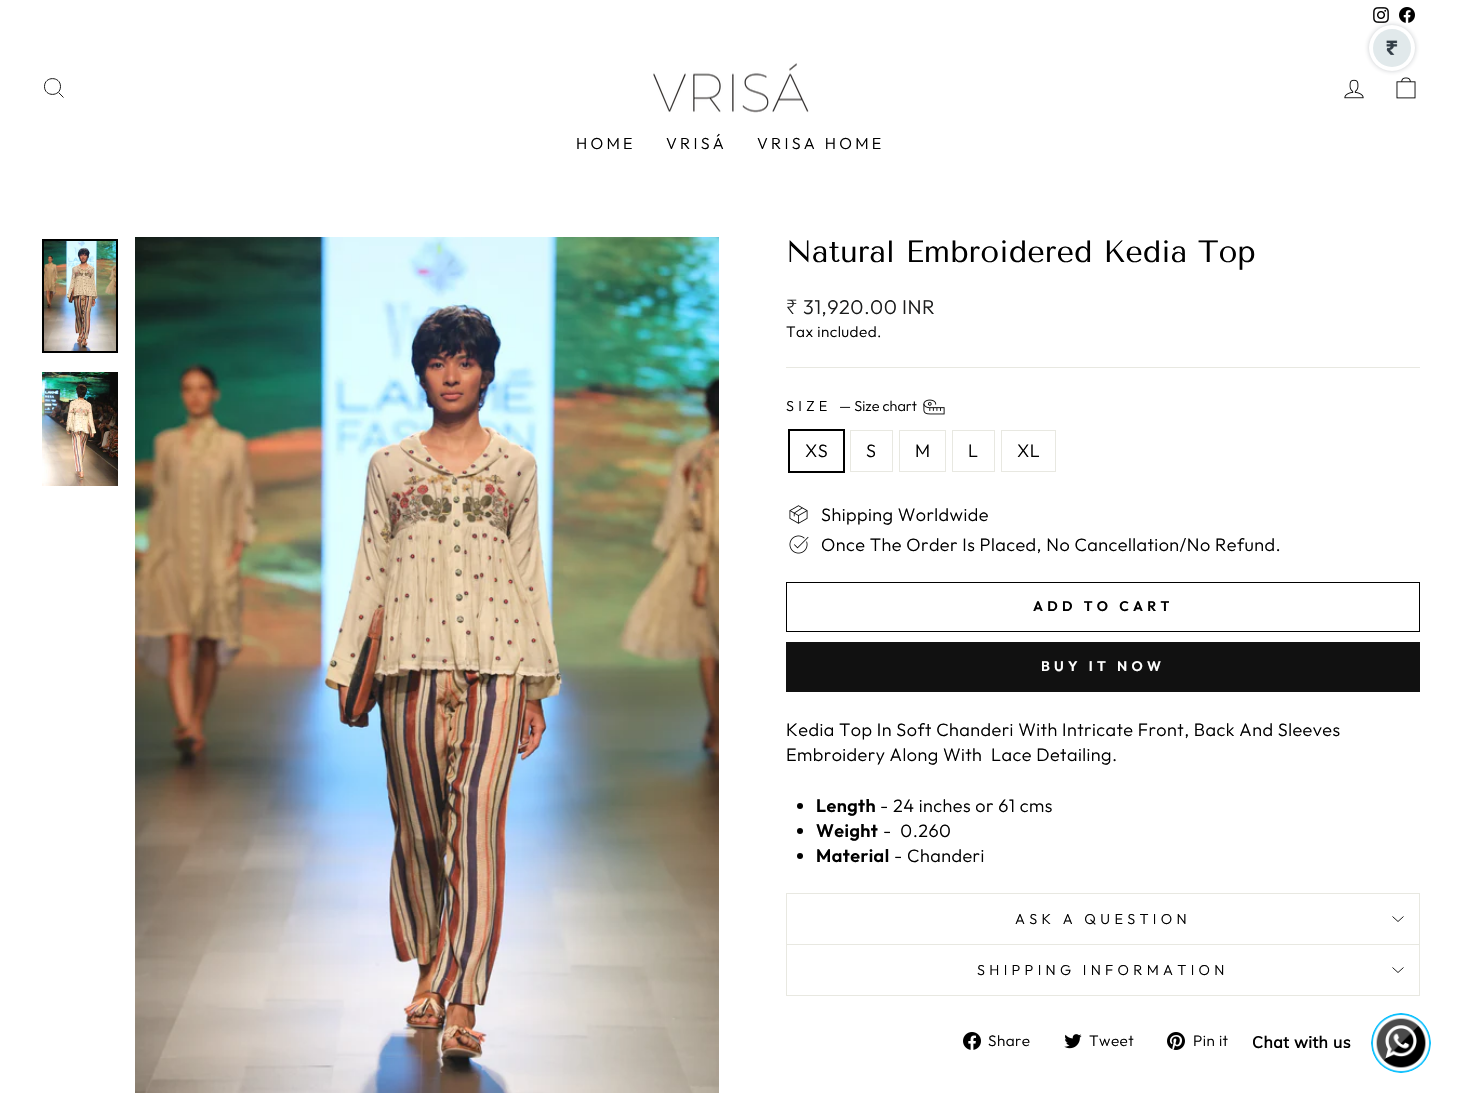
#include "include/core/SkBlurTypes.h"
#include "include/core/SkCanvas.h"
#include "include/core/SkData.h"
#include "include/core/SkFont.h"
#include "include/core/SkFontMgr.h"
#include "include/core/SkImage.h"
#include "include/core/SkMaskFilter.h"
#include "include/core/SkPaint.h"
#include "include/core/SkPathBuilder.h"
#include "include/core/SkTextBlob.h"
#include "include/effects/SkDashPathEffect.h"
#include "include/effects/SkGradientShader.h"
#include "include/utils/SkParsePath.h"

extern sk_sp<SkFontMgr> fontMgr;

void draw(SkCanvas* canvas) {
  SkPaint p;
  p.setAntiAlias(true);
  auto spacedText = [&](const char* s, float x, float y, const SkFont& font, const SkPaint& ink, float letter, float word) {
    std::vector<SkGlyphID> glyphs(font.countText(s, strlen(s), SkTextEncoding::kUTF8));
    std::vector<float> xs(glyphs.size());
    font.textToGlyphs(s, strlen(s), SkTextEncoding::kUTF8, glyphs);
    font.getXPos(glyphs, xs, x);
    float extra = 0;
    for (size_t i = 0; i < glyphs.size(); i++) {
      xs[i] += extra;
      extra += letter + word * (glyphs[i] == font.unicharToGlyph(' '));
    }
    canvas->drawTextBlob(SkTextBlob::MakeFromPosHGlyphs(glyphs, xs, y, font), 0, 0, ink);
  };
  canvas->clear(SK_ColorWHITE);
  canvas->drawImageRect(SkImages::DeferredFromEncodedData(SkData::MakeFromFileName("images/2.png")), SkRect::MakeLTRB(1373, 7, 1389, 23), SkSamplingOptions());
  canvas->drawImageRect(SkImages::DeferredFromEncodedData(SkData::MakeFromFileName("images/3.png")), SkRect::MakeLTRB(1399, 7, 1415, 23), SkSamplingOptions());
  canvas->drawImageRect(SkImages::DeferredFromEncodedData(SkData::MakeFromFileName("images/5.png")), SkRect::MakeLTRB(1344, 79, 1364, 99), SkSamplingOptions());
  canvas->drawImageRect(SkImages::DeferredFromEncodedData(SkData::MakeFromFileName("images/6.png")), SkRect::MakeLTRB(1396, 77, 1416, 99), SkSamplingOptions());
  p.setColor(SkColorSetARGB(64, 33, 43, 54));
  p.setMaskFilter(SkMaskFilter::MakeBlur(kNormal_SkBlurStyle, 2.5f));
  canvas->drawRoundRect(SkRect::MakeLTRB(1369, 25, 1415, 71), 23, 23, p);
  p.setMaskFilter(nullptr);
  p.setColor(SK_ColorWHITE);
  canvas->drawCircle(1392, 48, 23, p);
  p.setColor(SkColorSetRGB(225, 233, 235));
  canvas->drawCircle(1392, 48, 19, p);
  canvas->drawImageRect(SkImages::DeferredFromEncodedData(SkData::MakeFromFileName("images/1.png")), SkRect::MakeLTRB(1386, 40, 1398, 55), SkSamplingOptions());
  p.setStyle(SkPaint::kStroke_Style);
  p.setStrokeWidth(0.9f);
  p.setColor(SK_ColorBLACK);
  canvas->drawPath(SkPathBuilder().moveTo(60.5f, 86.5f).cubicTo(60.5f, 97, 44.5f, 97, 44.5f, 86.5f).cubicTo(44.5f, 76, 60.5f, 76, 60.5f, 86.5f).close().moveTo(63.5f, 97.5f).lineTo(58.5f, 92.5f).detach(), p);
  canvas->drawImageRect(SkImages::DeferredFromEncodedData(SkData::MakeFromFileName("images/4.png")), SkRect::MakeLTRB(653, 63, 809, 113), SkSamplingOptions());
  canvas->drawImageRect(SkImages::DeferredFromEncodedData(SkData::MakeFromFileName("images/7.png")), SkRect::MakeLTRB(44, 241, 116, 351), SkSamplingOptions());
  p.setStrokeWidth(2);
  canvas->drawRect(SkRect::MakeLTRB(43, 240, 117, 352), p);
  canvas->drawImageRect(SkImages::DeferredFromEncodedData(SkData::MakeFromFileName("images/8.png")), SkRect::MakeLTRB(42, 372, 118, 486), SkSamplingOptions());
  canvas->drawImageRect(SkImages::DeferredFromEncodedData(SkData::MakeFromFileName("images/9.png")), SkRect::MakeLTRB(135, 237, 719, 1093), SkSamplingOptions());
  p.setStyle(SkPaint::kFill_Style);
  p.setColor(SkColorSetRGB(232, 232, 225));
  canvas->drawRect(SkRect::MakeLTRB(786, 367, 1420, 368), p);
  canvas->drawImageRect(SkImages::DeferredFromEncodedData(SkData::MakeFromFileName("images/10.png")), SkRect::MakeLTRB(923, 399, 945, 415), SkSamplingOptions());
  p.setStyle(SkPaint::kStroke_Style);
  p.setColor(SK_ColorBLACK);
  canvas->drawRect(SkRect::MakeLTRB(789, 430, 844, 472), p);
  p.setStrokeWidth(1);
  p.setColor(SkColorSetRGB(232, 232, 225));
  canvas->drawRect(SkRect::MakeLTRB(850.5f, 430.5f, 892.5f, 471.5f), p);
  canvas->drawRect(SkRect::MakeLTRB(899.5f, 430.5f, 945.5f, 471.5f), p);
  canvas->drawRect(SkRect::MakeLTRB(952.5f, 430.5f, 994.5f, 471.5f), p);
  canvas->drawRect(SkRect::MakeLTRB(1001.5f, 430.5f, 1055.5f, 471.5f), p);
  canvas->drawImageRect(SkImages::DeferredFromEncodedData(SkData::MakeFromFileName("images/11.png")), SkRect::MakeLTRB(789, 505, 808, 524), SkSamplingOptions());
  canvas->drawImageRect(SkImages::DeferredFromEncodedData(SkData::MakeFromFileName("images/12.png")), SkRect::MakeLTRB(789, 535, 809, 554), SkSamplingOptions());
  p.setColor(SK_ColorBLACK);
  canvas->drawRect(SkRect::MakeLTRB(786.5f, 582.5f, 1419.5f, 631.5f), p);
  p.setStyle(SkPaint::kFill_Style);
  p.setColor(SkColorSetRGB(17, 17, 17));
  canvas->drawRect(SkRect::MakeLTRB(786, 642, 1420, 692), p);
  p.setColor(SK_ColorBLACK);
  canvas->drawCircle(800, 806, 3, p);
  canvas->drawCircle(800, 831, 3, p);
  canvas->drawCircle(800, 856, 3, p);
  p.setColor(SkColorSetRGB(232, 232, 225));
  canvas->drawRect(SkRect::MakeLTRB(786, 944, 1420, 945), p);
  canvas->drawRect(SkRect::MakeLTRB(786, 893, 1420, 894), p);
  canvas->drawRect(SkRect::MakeLTRB(1419, 893, 1420, 944), p);
  canvas->drawRect(SkRect::MakeLTRB(786, 893, 787, 944), p);
  p.setStyle(SkPaint::kStroke_Style);
  p.setStrokeWidth(0.9f);
  p.setColor(SK_ColorBLACK);
  canvas->drawPath(SkPathBuilder().moveTo(1392.5f, 916.5f).lineTo(1398, 921.5f).lineTo(1403.5f, 916.5f).detach(), p);
  p.setStyle(SkPaint::kFill_Style);
  p.setColor(SkColorSetRGB(232, 232, 225));
  canvas->drawRect(SkRect::MakeLTRB(786, 995, 1420, 996), p);
  canvas->drawRect(SkRect::MakeLTRB(1419, 945, 1420, 995), p);
  canvas->drawRect(SkRect::MakeLTRB(786, 945, 787, 995), p);
  p.setStyle(SkPaint::kStroke_Style);
  p.setColor(SK_ColorBLACK);
  canvas->drawPath(SkPathBuilder().moveTo(1392.5f, 967.5f).lineTo(1398, 972.5f).lineTo(1403.5f, 967.5f).detach(), p);
  canvas->drawImageRect(SkImages::DeferredFromEncodedData(SkData::MakeFromFileName("images/13.png")), SkRect::MakeLTRB(963, 1032, 981, 1050), SkSamplingOptions());
  canvas->drawImageRect(SkImages::DeferredFromEncodedData(SkData::MakeFromFileName("images/14.png")), SkRect::MakeLTRB(1064, 1034, 1082, 1049), SkSamplingOptions());
  canvas->drawImageRect(SkImages::DeferredFromEncodedData(SkData::MakeFromFileName("images/15.png")), SkRect::MakeLTRB(1167, 1032, 1185, 1050), SkSamplingOptions());
  canvas->drawImageRect(SkImages::DeferredFromEncodedData(SkData::MakeFromFileName("images/16.png")), SkRect::MakeLTRB(1371, 1013, 1431, 1073), SkSamplingOptions());
  SkFont font1(fontMgr->matchFamilyStyle("Outfit", SkFontStyle(300, SkFontStyle::kNormal_Width, SkFontStyle::kUpright_Slant)), 16);
  font1.setSubpixel(true);
  p.setStyle(SkPaint::kFill_Style);
  spacedText("HOME", 576, 149, font1, p, 3.25f, 0);
  spacedText("VRISÁ", 666, 149, font1, p, 3.25f, 0);
  spacedText("VRISA HOME", 757, 149, font1, p, 3.25f, 0);
  SkFont font2(fontMgr->matchFamilyStyle("Tenor Sans", SkFontStyle::Normal()), 30.6f);
  font2.setSubpixel(true);
  canvas->drawString("Natural Embroidered Kedia Top", 786, 262, font2, p);
  SkFont font3(fontMgr->matchFamilyStyle("Noto Sans", SkFontStyle(300, SkFontStyle::kNormal_Width, SkFontStyle::kUpright_Slant)), 20);
  font3.setSubpixel(true);
  p.setColor(SkColorSetRGB(28, 29, 29));
  spacedText("₹", 786, 314, font3, p, 0.45f, 0);
  SkFont font4(fontMgr->matchFamilyStyle("Outfit", SkFontStyle(300, SkFontStyle::kNormal_Width, SkFontStyle::kUpright_Slant)), 20);
  font4.setSubpixel(true);
  spacedText("31,920.00 INR", 803, 314, font4, p, 0.45f, 0);
  SkFont font5(fontMgr->matchFamilyStyle("Outfit", SkFontStyle(300, SkFontStyle::kNormal_Width, SkFontStyle::kUpright_Slant)), 15.25f);
  font5.setSubpixel(true);
  p.setColor(SK_ColorBLACK);
  spacedText("Tax included.", 786, 337, font5, p, 0.45f, 0);
  SkFont font6(fontMgr->matchFamilyStyle("Outfit", SkFontStyle(300, SkFontStyle::kNormal_Width, SkFontStyle::kUpright_Slant)), 14.4f);
  font6.setSubpixel(true);
  spacedText("SIZE", 786, 411, font6, p, 4.3f, 0);
  canvas->drawString("— Size chart", 839, 411, font6, p);
  SkFont font7(fontMgr->matchFamilyStyle("Outfit", SkFontStyle(300, SkFontStyle::kNormal_Width, SkFontStyle::kUpright_Slant)), 18);
  font7.setSubpixel(true);
  spacedText("XS", 805, 457, font7, p, 0.45f, 0);
  spacedText("S", 866, 457, font7, p, 0.45f, 0);
  spacedText("M", 915, 457, font7, p, 0.45f, 0);
  spacedText("L", 968, 457, font7, p, 0.45f, 0);
  spacedText("XL", 1017, 457, font7, p, 0.45f, 0);
  spacedText("Shipping Worldwide", 821, 521, font7, p, 0.45f, 0);
  spacedText("Once The Order Is Placed, No Cancellation/No Refund.", 821, 551, font7, p, 0.45f, 0);
  SkFont font8(fontMgr->matchFamilyStyle("Outfit", SkFontStyle(600, SkFontStyle::kNormal_Width, SkFontStyle::kUpright_Slant)), 14);
  font8.setSubpixel(true);
  spacedText("ADD TO CART", 1033, 611, font8, p, 4.25f, 0);
  p.setColor(SK_ColorWHITE);
  spacedText("BUY IT NOW", 1041, 671, font8, p, 4.25f, 0);
  p.setColor(SK_ColorBLACK);
  spacedText("Kedia Top In Soft Chanderi With Intricate Front, Back And Sleeves", 786, 736, font7, p, 0.45f, 0);
  spacedText("Embroidery Along With  Lace Detailing.", 786, 761, font7, p, 0.45f, 0);
  SkFont font9(fontMgr->matchFamilyStyle("Outfit", SkFontStyle(600, SkFontStyle::kNormal_Width, SkFontStyle::kUpright_Slant)), 18);
  font9.setSubpixel(true);
  spacedText("Length", 816, 812, font9, p, 0.45f, 0);
  spacedText("- 24 inches or 61 cms", 880, 812, font7, p, 0.45f, 0);
  spacedText("Weight", 816, 837, font9, p, 0.45f, 0);
  spacedText("-  0.260", 883, 837, font7, p, 0.45f, 0);
  spacedText("Material", 816, 862, font9, p, 0.45f, 0);
  spacedText("- Chanderi", 894, 862, font7, p, 0.45f, 0);
  spacedText("ASK A QUESTION", 1015, 924, font6, p, 4.3f, 0);
  spacedText("SHIPPING INFORMATION", 977, 975, font6, p, 4.3f, 0);
  spacedText("Share", 988, 1046, font5, p, 0.45f, 0);
  spacedText("Tweet", 1089, 1046, font5, p, 0.45f, 0);
  spacedText("Pin it", 1193, 1046, font5, p, 0.45f, 0);
  SkFont font10(fontMgr->matchFamilyStyle("Muli", SkFontStyle::Bold()), 16);
  font10.setSubpixel(true);
  spacedText("Chat with us", 1252, 1048, font10, p, 0.45f, 0);
}
